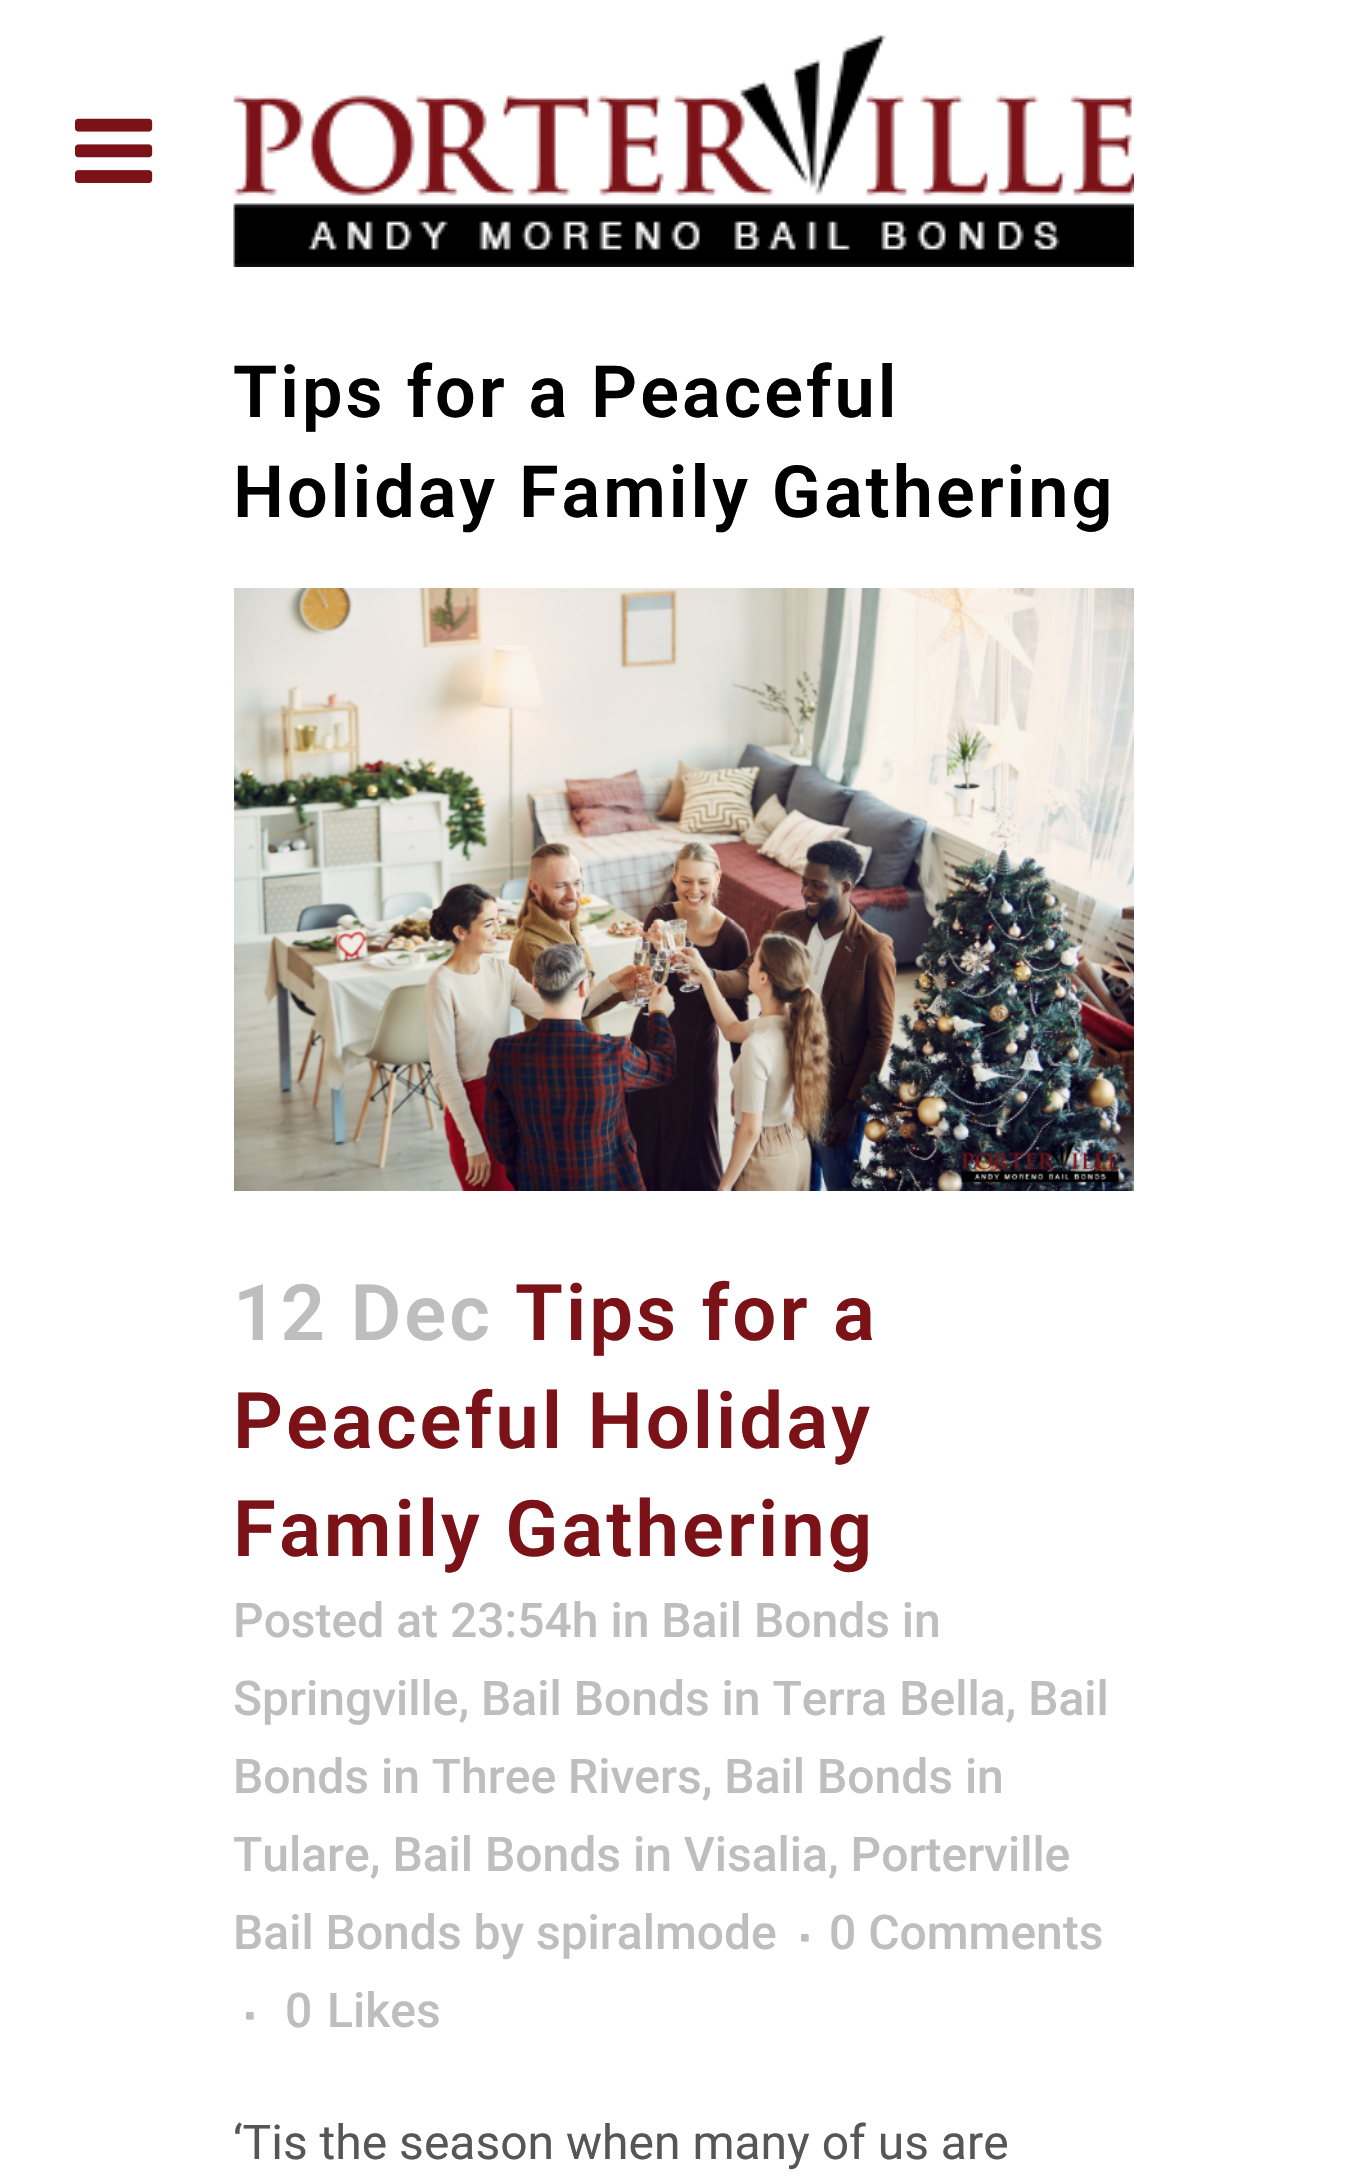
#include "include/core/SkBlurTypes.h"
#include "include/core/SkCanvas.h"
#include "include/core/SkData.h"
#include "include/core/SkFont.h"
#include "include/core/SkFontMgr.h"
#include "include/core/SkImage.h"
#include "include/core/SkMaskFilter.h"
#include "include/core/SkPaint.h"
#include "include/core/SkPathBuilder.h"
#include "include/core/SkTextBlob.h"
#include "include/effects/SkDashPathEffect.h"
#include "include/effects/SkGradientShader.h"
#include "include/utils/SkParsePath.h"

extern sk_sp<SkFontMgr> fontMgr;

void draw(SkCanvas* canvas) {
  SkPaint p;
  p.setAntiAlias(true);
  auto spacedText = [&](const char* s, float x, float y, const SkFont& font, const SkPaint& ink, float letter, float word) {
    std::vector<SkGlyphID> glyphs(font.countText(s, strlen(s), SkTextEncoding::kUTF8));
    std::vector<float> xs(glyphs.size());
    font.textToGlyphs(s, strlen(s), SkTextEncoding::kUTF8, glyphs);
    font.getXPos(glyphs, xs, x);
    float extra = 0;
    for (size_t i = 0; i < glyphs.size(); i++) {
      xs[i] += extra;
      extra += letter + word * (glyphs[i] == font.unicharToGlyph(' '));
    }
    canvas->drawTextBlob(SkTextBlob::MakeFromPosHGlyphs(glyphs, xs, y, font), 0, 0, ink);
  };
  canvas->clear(SK_ColorWHITE);
  canvas->drawImageRect(SkImages::DeferredFromEncodedData(SkData::MakeFromFileName("images/1.png")), SkRect::MakeLTRB(75, 118, 153, 183), SkSamplingOptions());
  canvas->drawImageRect(SkImages::DeferredFromEncodedData(SkData::MakeFromFileName("images/2.png")), SkRect::MakeLTRB(233, 35, 1134, 267), SkSamplingOptions());
  canvas->drawImageRect(SkImages::DeferredFromEncodedData(SkData::MakeFromFileName("images/3.png")), SkRect::MakeLTRB(234, 588, 1134, 1191), SkSamplingOptions());
  canvas->drawImageRect(SkImages::DeferredFromEncodedData(SkData::MakeFromFileName("images/4.png")), SkRect::MakeLTRB(801, 1933, 809, 1942), SkSamplingOptions());
  canvas->drawImageRect(SkImages::DeferredFromEncodedData(SkData::MakeFromFileName("images/4.png")), SkRect::MakeLTRB(246, 2011, 254, 2020), SkSamplingOptions());
  SkFont font1(fontMgr->matchFamilyStyle("Roboto", SkFontStyle(600, SkFontStyle::kNormal_Width, SkFontStyle::kUpright_Slant)), 72);
  font1.setSubpixel(true);
  p.setColor(SK_ColorBLACK);
  spacedText("Tips for a Peaceful", 233, 417, font1, p, 3, 0);
  spacedText("Holiday Family Gathering", 233, 517, font1, p, 3, 0);
  SkFont font2(fontMgr->matchFamilyStyle("Roboto", SkFontStyle(600, SkFontStyle::kNormal_Width, SkFontStyle::kUpright_Slant)), 78);
  font2.setSubpixel(true);
  p.setColor(SkColorSetRGB(190, 190, 190));
  spacedText("12 Dec", 233, 1340, font2, p, 3, 0);
  p.setColor(SkColorSetRGB(122, 18, 24));
  spacedText("Tips for a", 515, 1340, font2, p, 3, 0);
  spacedText("Peaceful Holiday", 233, 1448, font2, p, 3, 0);
  spacedText("Family Gathering", 233, 1556, font2, p, 3, 0);
  SkFont font3(fontMgr->matchFamilyStyle("Roboto", SkFontStyle(500, SkFontStyle::kNormal_Width, SkFontStyle::kUpright_Slant)), 48);
  font3.setSubpixel(true);
  p.setColor(SkColorSetRGB(190, 190, 190));
  canvas->drawString("Posted at 23:54h in Bail Bonds in", 233, 1637, font3, p);
  canvas->drawString("Springville, Bail Bonds in Terra Bella, Bail", 233, 1715, font3, p);
  canvas->drawString("Bonds in Three Rivers, Bail Bonds in", 233, 1793, font3, p);
  canvas->drawString("Tulare, Bail Bonds in Visalia, Porterville", 233, 1871, font3, p);
  canvas->drawString("Bail Bonds by spiralmode", 233, 1949, font3, p);
  canvas->drawString("0 Comments", 829, 1949, font3, p);
  canvas->drawString("0", 285, 2027, font3, p);
  canvas->drawString("Likes", 327, 2027, font3, p);
  SkFont font4(fontMgr->matchFamilyStyle("Roboto", SkFontStyle::Normal()), 48);
  font4.setSubpixel(true);
  p.setColor(SkColorSetRGB(86, 86, 86));
  canvas->drawString("‘Tis the season when many of us are", 233, 2159, font4, p);
}
